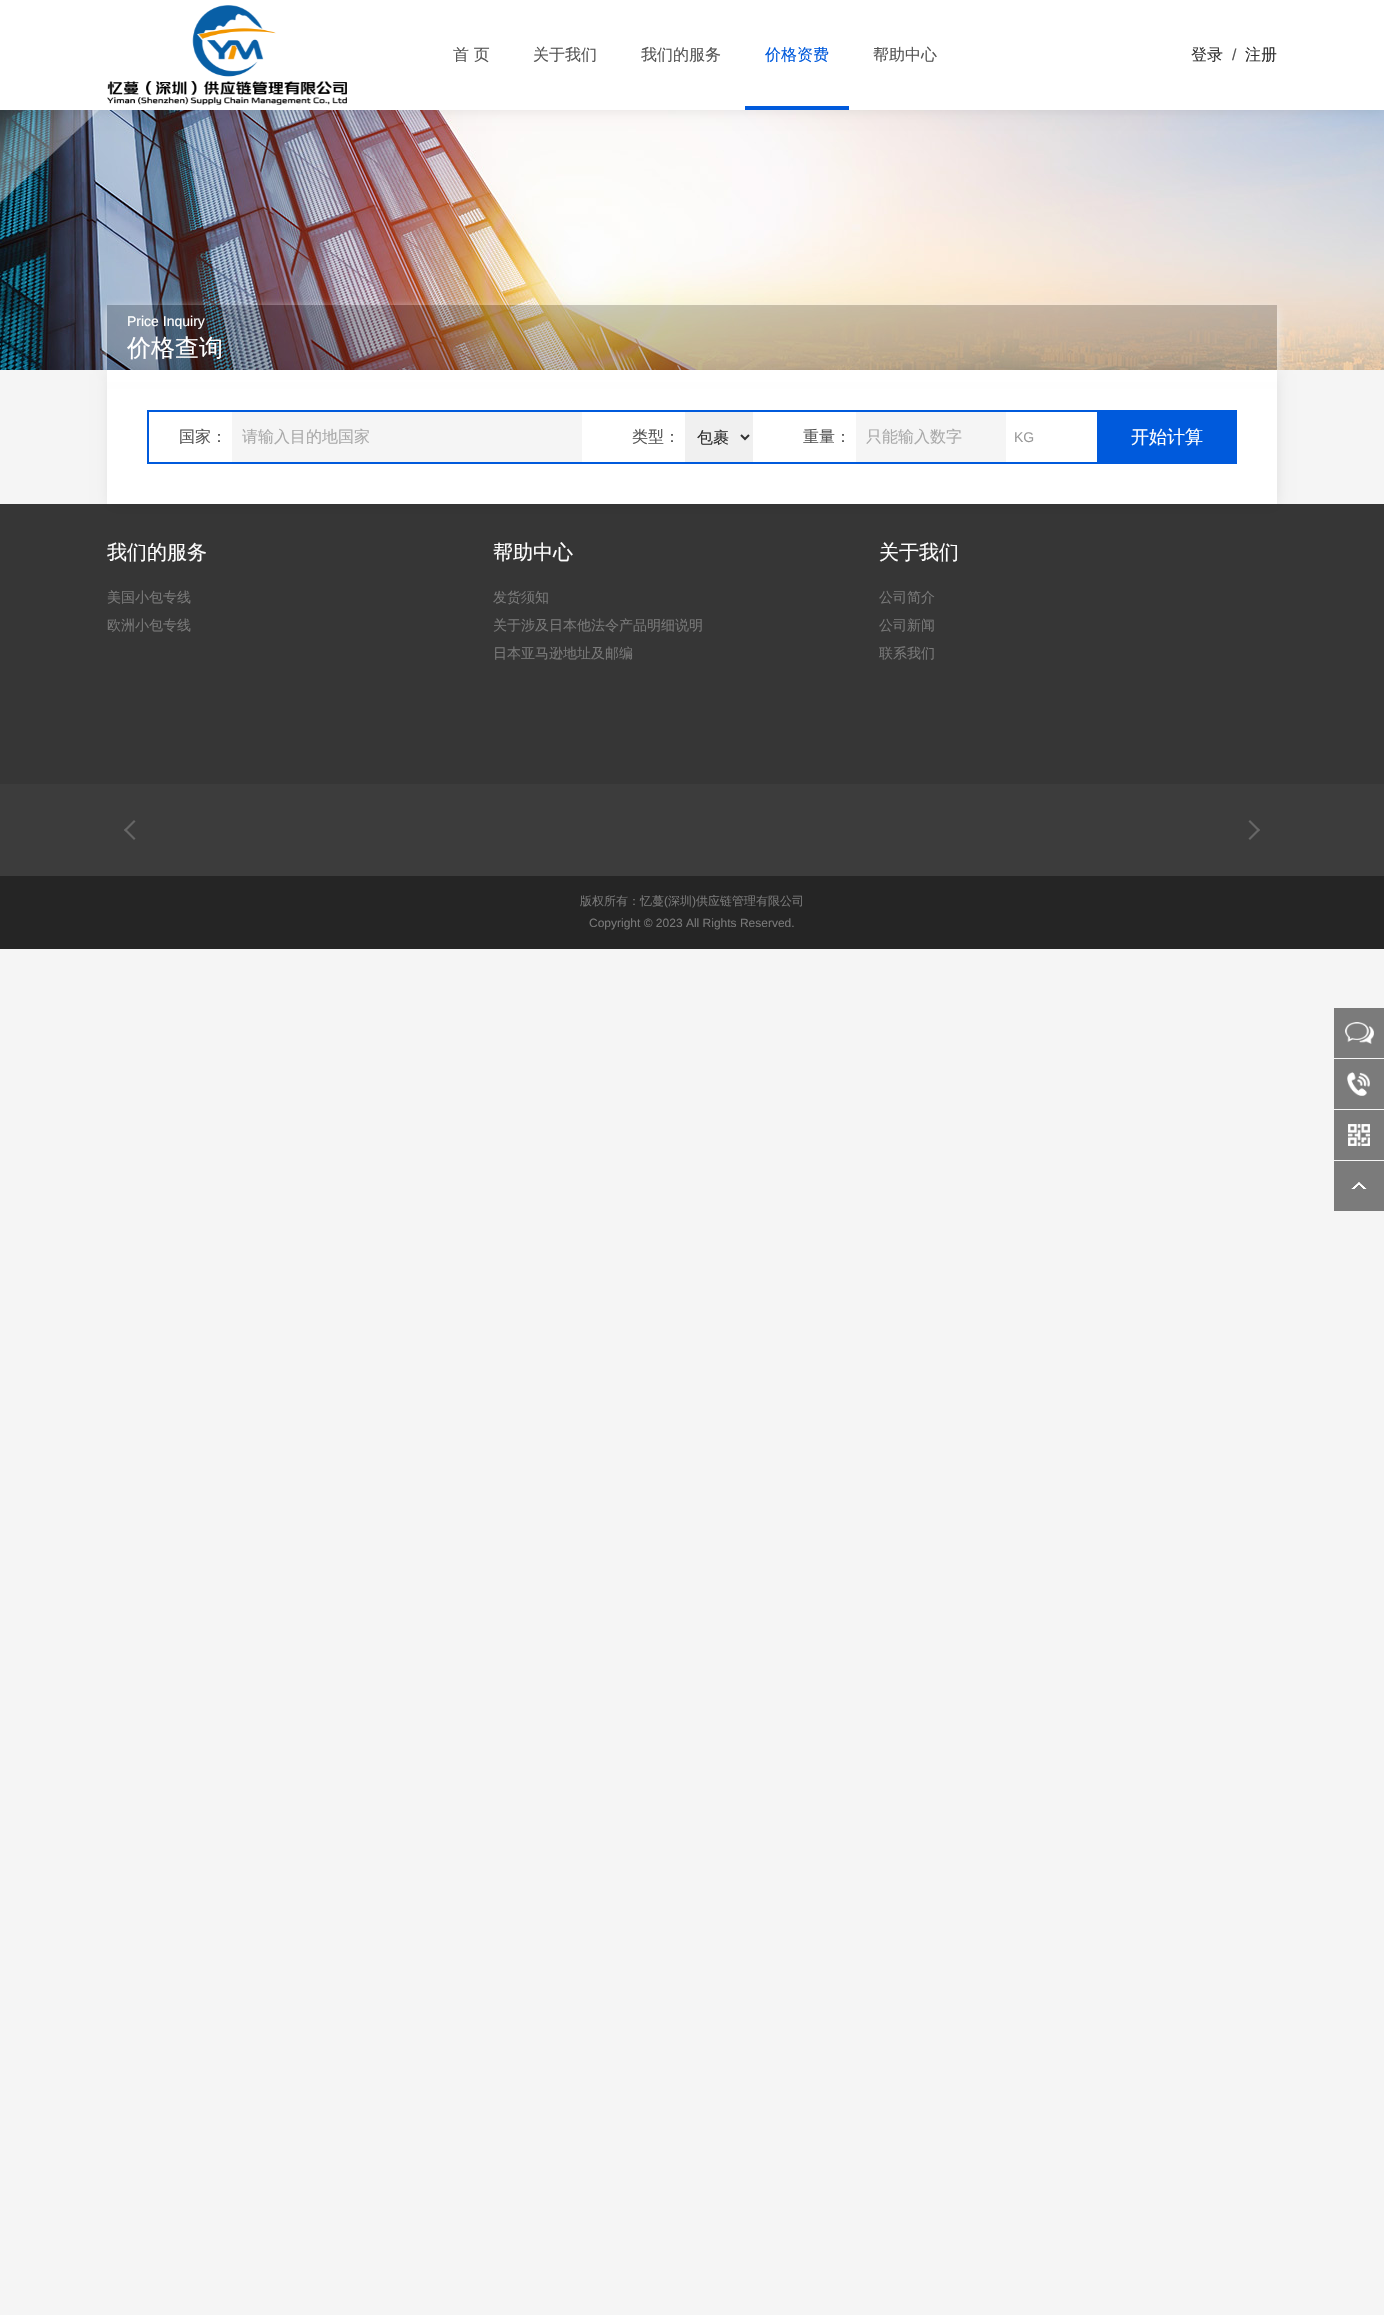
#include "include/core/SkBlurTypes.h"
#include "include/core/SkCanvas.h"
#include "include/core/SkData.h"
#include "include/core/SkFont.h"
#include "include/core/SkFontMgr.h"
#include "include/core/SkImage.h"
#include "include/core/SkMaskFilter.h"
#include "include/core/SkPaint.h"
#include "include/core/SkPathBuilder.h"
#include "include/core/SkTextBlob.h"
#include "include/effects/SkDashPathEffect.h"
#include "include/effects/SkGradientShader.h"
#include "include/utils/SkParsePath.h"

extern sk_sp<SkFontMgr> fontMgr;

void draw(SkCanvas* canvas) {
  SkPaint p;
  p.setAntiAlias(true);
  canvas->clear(SkColorSetRGB(245, 245, 245));
  canvas->drawImageRect(SkImages::DeferredFromEncodedData(SkData::MakeFromFileName("images/2.png")), SkRect::MakeLTRB(0, 110, 1384, 370), SkSamplingOptions());
  p.setColor(SkColorSetARGB(26, 0, 0, 0));
  p.setMaskFilter(SkMaskFilter::MakeBlur(kNormal_SkBlurStyle, 7));
  canvas->drawRect(SkRect::MakeLTRB(3, 4, 1383, 110), p);
  p.setMaskFilter(nullptr);
  p.setColor(SK_ColorWHITE);
  canvas->drawRect(SkRect::MakeLTRB(0, 0, 1384, 110), p);
  canvas->drawImageRect(SkImages::DeferredFromEncodedData(SkData::MakeFromFileName("images/1.png")), SkRect::MakeLTRB(107, 5, 347, 105), SkSamplingOptions());
  p.setColor(SkColorSetRGB(0, 90, 220));
  canvas->drawRect(SkRect::MakeLTRB(745, 106, 849, 110), p);
  p.setColor(SkColorSetRGB(54, 54, 54));
  canvas->drawRect(SkRect::MakeLTRB(0, 504, 1384, 784), p);
  p.setColor(SkColorSetARGB(26, 0, 0, 0));
  p.setMaskFilter(SkMaskFilter::MakeBlur(kNormal_SkBlurStyle, 7));
  canvas->drawRect(SkRect::MakeLTRB(110, 374, 1276, 504), p);
  p.setMaskFilter(nullptr);
  p.setColor(SK_ColorWHITE);
  canvas->drawRect(SkRect::MakeLTRB(107, 382, 1277, 504), p);
  canvas->save();
  canvas->clipPath(SkPathBuilder(SkPathFillType::kEvenOdd).moveTo(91, 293).lineTo(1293, 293).lineTo(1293, 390).lineTo(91, 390).close().moveTo(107, 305).lineTo(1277, 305).lineTo(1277, 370).lineTo(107, 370).close().detach(), true);
  p.setColor(SkColorSetRGB(238, 238, 238));
  p.setMaskFilter(SkMaskFilter::MakeBlur(kNormal_SkBlurStyle, 5));
  canvas->drawRect(SkRect::MakeLTRB(107, 309, 1277, 374), p);
  p.setMaskFilter(nullptr);
  canvas->restore();
  p.setColor(SkColorSetARGB(51, 0, 0, 0));
  canvas->drawRect(SkRect::MakeLTRB(107, 305, 1277, 370), p);
  p.setColor(SK_ColorWHITE);
  canvas->drawRect(SkRect::MakeLTRB(107, 370, 1277, 382), p);
  p.setStyle(SkPaint::kStroke_Style);
  p.setStrokeWidth(2);
  p.setColor(SkColorSetRGB(0, 90, 220));
  canvas->drawRect(SkRect::MakeLTRB(148, 411, 1236, 463), p);
  p.setStyle(SkPaint::kFill_Style);
  p.setColor(SkColorSetRGB(245, 245, 245));
  canvas->drawRect(SkRect::MakeLTRB(232, 412, 582, 462), p);
  p.setColor(SkColorSetRGB(240, 240, 240));
  canvas->drawRect(SkRect::MakeLTRB(685, 412, 753, 462), p);
  p.setStyle(SkPaint::kStroke_Style);
  p.setColor(SkColorSetRGB(51, 51, 51));
  canvas->drawPath(SkPathBuilder().moveTo(741, 435).lineTo(745, 439).lineTo(749, 435).detach(), p);
  p.setStyle(SkPaint::kFill_Style);
  p.setColor(SkColorSetRGB(245, 245, 245));
  canvas->drawRect(SkRect::MakeLTRB(856, 412, 1006, 462), p);
  p.setColor(SkColorSetRGB(0, 90, 220));
  canvas->drawRect(SkRect::MakeLTRB(1097, 412, 1235, 462), p);
  p.setColor(SkColorSetRGB(60, 60, 60));
  canvas->drawRect(SkRect::MakeLTRB(0, 784, 1384, 876), p);
  p.setColor(SkColorSetRGB(102, 102, 102));
  canvas->drawPath(SkPathBuilder().moveTo(124, 830).lineTo(134, 820).lineTo(135.5f, 821.5f).lineTo(125.5f, 831.5f).close().detach(), p);
  canvas->drawPath(SkPathBuilder().moveTo(124, 830).lineTo(125.5f, 828.5f).lineTo(135.5f, 838.5f).lineTo(134, 840).close().detach(), p);
  canvas->drawPath(SkPathBuilder().moveTo(1260, 830).lineTo(1250, 840).lineTo(1248.5f, 838.5f).lineTo(1258.5f, 828.5f).close().detach(), p);
  canvas->drawPath(SkPathBuilder().moveTo(1260, 830).lineTo(1258.5f, 831.5f).lineTo(1248.5f, 821.5f).lineTo(1250, 820).close().detach(), p);
  p.setColor(SkColorSetRGB(37, 37, 37));
  canvas->drawRect(SkRect::MakeLTRB(0, 876, 1384, 949), p);
  p.setColor(SkColorSetRGB(123, 123, 123));
  canvas->drawRect(SkRect::MakeLTRB(1334, 1008, 1384, 1058), p);
  canvas->drawImageRect(SkImages::DeferredFromEncodedData(SkData::MakeFromFileName("images/3.png")), SkRect::MakeLTRB(1345, 1022, 1374, 1044), SkSamplingOptions());
  canvas->drawRect(SkRect::MakeLTRB(1334, 1059, 1384, 1109), p);
  canvas->drawImageRect(SkImages::DeferredFromEncodedData(SkData::MakeFromFileName("images/4.png")), SkRect::MakeLTRB(1347, 1072, 1370, 1096), SkSamplingOptions());
  canvas->drawRect(SkRect::MakeLTRB(1334, 1110, 1384, 1160), p);
  canvas->drawImageRect(SkImages::DeferredFromEncodedData(SkData::MakeFromFileName("images/5.png")), SkRect::MakeLTRB(1348, 1124, 1370, 1146), SkSamplingOptions());
  canvas->drawRect(SkRect::MakeLTRB(1334, 1161, 1384, 1211), p);
  canvas->drawImageRect(SkImages::DeferredFromEncodedData(SkData::MakeFromFileName("images/6.png")), SkRect::MakeLTRB(1351, 1182, 1367, 1189), SkSamplingOptions());
  SkFont font1(fontMgr->matchFamilyStyle("WenQuanYi Zen Hei", SkFontStyle(500, SkFontStyle::kNormal_Width, SkFontStyle::kUpright_Slant)), 16);
  font1.setSubpixel(true);
  p.setColor(SkColorSetRGB(85, 85, 85));
  canvas->drawString("首 页", 453, 60, font1, p);
  canvas->drawString("关于我们", 533, 60, font1, p);
  canvas->drawString("我们的服务", 641, 60, font1, p);
  p.setColor(SkColorSetRGB(0, 90, 220));
  canvas->drawString("价格资费", 765, 60, font1, p);
  p.setColor(SkColorSetRGB(85, 85, 85));
  canvas->drawString("帮助中心", 873, 60, font1, p);
  p.setColor(SkColorSetRGB(51, 51, 51));
  canvas->drawString("登录", 1191, 60, font1, p);
  SkFont font2(fontMgr->matchFamilyStyle("Liberation Sans", SkFontStyle::Normal()), 16);
  font2.setSubpixel(true);
  p.setColor(SkColorSetRGB(85, 85, 85));
  canvas->drawString("/", 1232, 60, font2, p);
  p.setColor(SkColorSetRGB(51, 51, 51));
  canvas->drawString("注册", 1245, 60, font1, p);
  SkFont font3(fontMgr->matchFamilyStyle("Liberation Sans", SkFontStyle::Normal()), 14);
  font3.setSubpixel(true);
  p.setColor(SK_ColorWHITE);
  canvas->drawString("Price Inquiry", 127, 326, font3, p);
  SkFont font4(fontMgr->matchFamilyStyle("WenQuanYi Zen Hei", SkFontStyle(500, SkFontStyle::kNormal_Width, SkFontStyle::kUpright_Slant)), 24);
  font4.setSubpixel(true);
  canvas->drawString("价格查询", 127, 356, font4, p);
  p.setColor(SkColorSetRGB(85, 85, 85));
  canvas->drawString("国家：", 179, 442, font1, p);
  p.setColor(SkColorSetRGB(170, 170, 170));
  canvas->drawString("请输入目的地国家", 242, 442, font1, p);
  p.setColor(SkColorSetRGB(85, 85, 85));
  canvas->drawString("类型：", 632, 442, font1, p);
  p.setColor(SkColorSetRGB(51, 51, 51));
  canvas->drawString("包裹", 697, 443, font1, p);
  p.setColor(SkColorSetRGB(85, 85, 85));
  canvas->drawString("重量：", 803, 442, font1, p);
  p.setColor(SkColorSetRGB(170, 170, 170));
  canvas->drawString("只能输入数字", 866, 442, font1, p);
  p.setColor(SkColorSetRGB(153, 153, 153));
  canvas->drawString("KG", 1014, 442, font3, p);
  SkFont font5(fontMgr->matchFamilyStyle("WenQuanYi Zen Hei", SkFontStyle(500, SkFontStyle::kNormal_Width, SkFontStyle::kUpright_Slant)), 18);
  font5.setSubpixel(true);
  p.setColor(SK_ColorWHITE);
  canvas->drawString("开始计算", 1131, 443, font5, p);
  SkFont font6(fontMgr->matchFamilyStyle("WenQuanYi Zen Hei", SkFontStyle(500, SkFontStyle::kNormal_Width, SkFontStyle::kUpright_Slant)), 20);
  font6.setSubpixel(true);
  canvas->drawString("我们的服务", 107, 559, font6, p);
  SkFont font7(fontMgr->matchFamilyStyle("WenQuanYi Zen Hei", SkFontStyle(500, SkFontStyle::kNormal_Width, SkFontStyle::kUpright_Slant)), 14);
  font7.setSubpixel(true);
  p.setColor(SkColorSetRGB(120, 120, 120));
  canvas->drawString("美国小包专线", 107, 602, font7, p);
  canvas->drawString("欧洲小包专线", 107, 630, font7, p);
  p.setColor(SK_ColorWHITE);
  canvas->drawString("帮助中心", 493, 559, font6, p);
  p.setColor(SkColorSetRGB(120, 120, 120));
  canvas->drawString("发货须知", 493, 602, font7, p);
  canvas->drawString("关于涉及日本他法令产品明细说明", 493, 630, font7, p);
  canvas->drawString("日本亚马逊地址及邮编", 493, 658, font7, p);
  p.setColor(SK_ColorWHITE);
  canvas->drawString("关于我们", 879, 559, font6, p);
  p.setColor(SkColorSetRGB(120, 120, 120));
  canvas->drawString("公司简介", 879, 602, font7, p);
  canvas->drawString("公司新闻", 879, 630, font7, p);
  canvas->drawString("联系我们", 879, 658, font7, p);
  SkFont font8(fontMgr->matchFamilyStyle("WenQuanYi Zen Hei", SkFontStyle(500, SkFontStyle::kNormal_Width, SkFontStyle::kUpright_Slant)), 12);
  font8.setSubpixel(true);
  canvas->drawString("版权所有：忆蔓", 580, 905, font8, p);
  SkFont font9(fontMgr->matchFamilyStyle("Liberation Sans", SkFontStyle::Normal()), 12);
  font9.setSubpixel(true);
  canvas->drawString("(", 664, 905, font9, p);
  canvas->drawString("深圳", 668, 905, font8, p);
  canvas->drawString(")", 692, 905, font9, p);
  canvas->drawString("供应链管理有限公司", 696, 905, font8, p);
  canvas->drawString("Copyright © 2023 All Rights Reserved.", 589, 927, font9, p);
}
